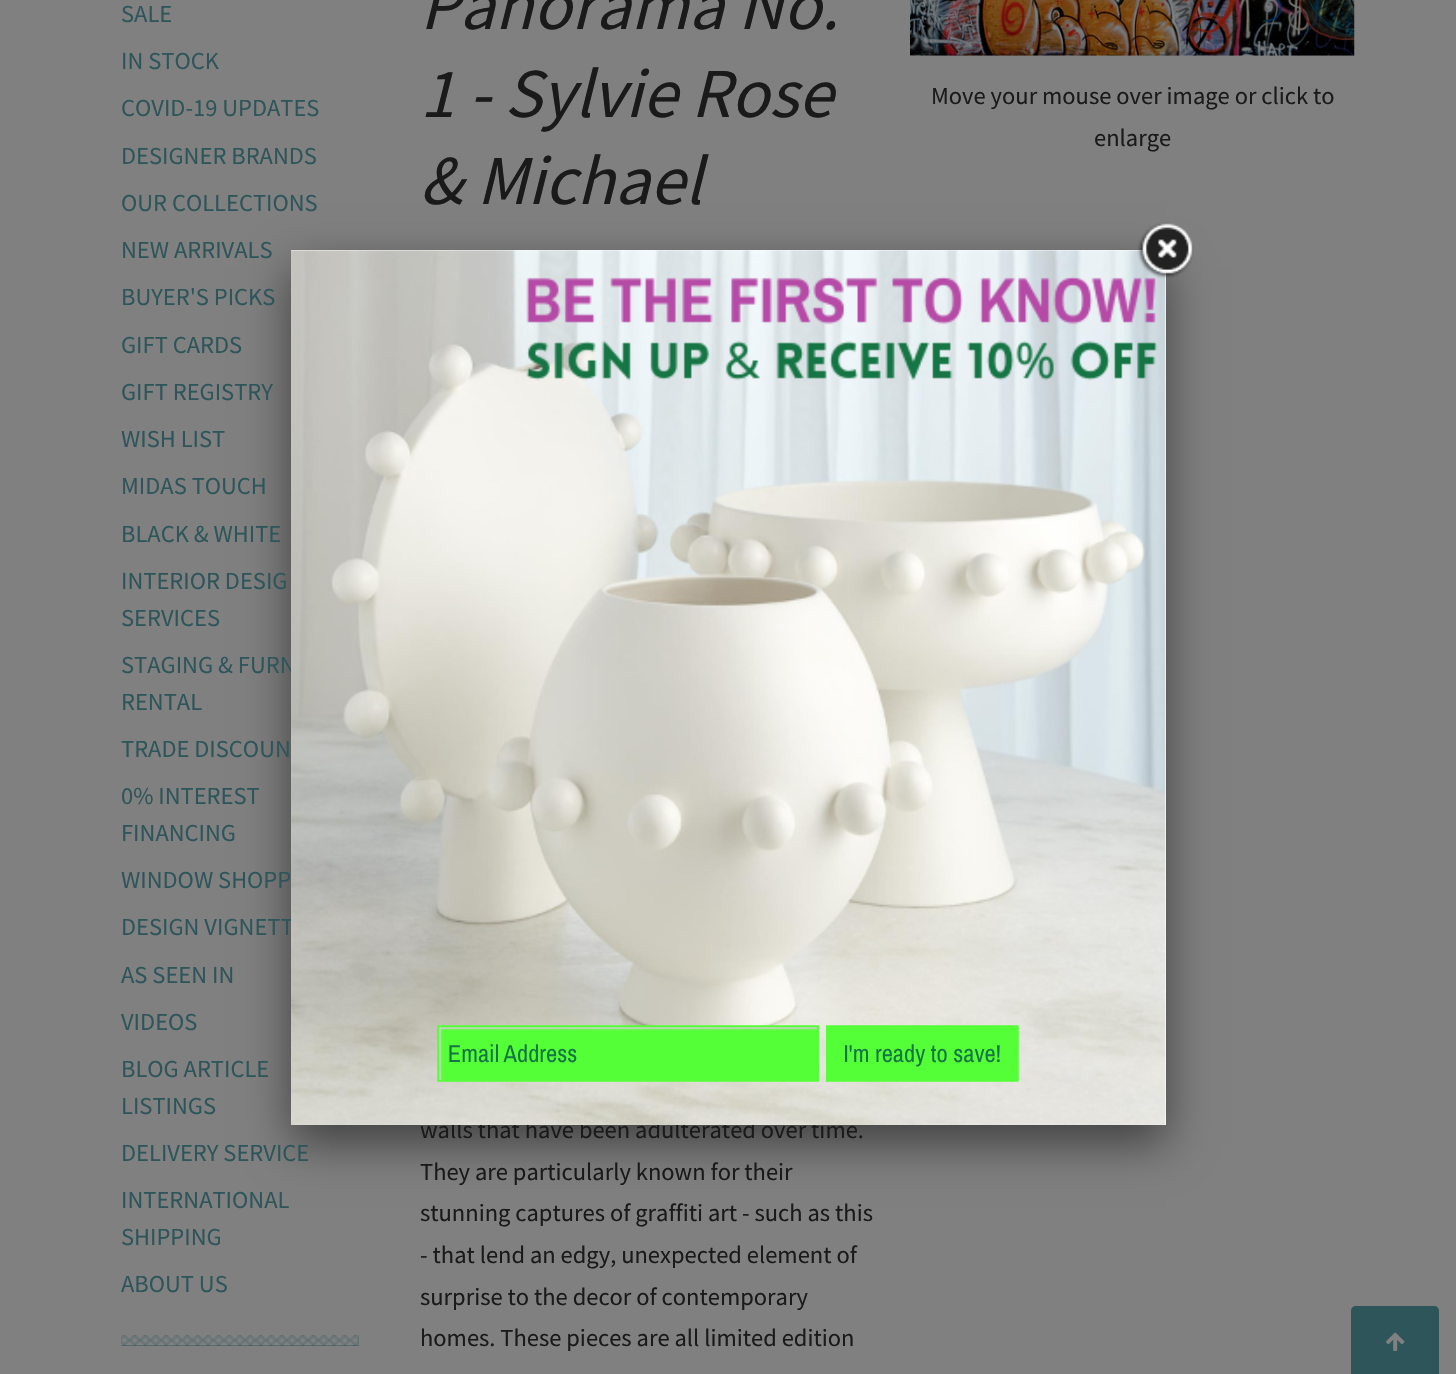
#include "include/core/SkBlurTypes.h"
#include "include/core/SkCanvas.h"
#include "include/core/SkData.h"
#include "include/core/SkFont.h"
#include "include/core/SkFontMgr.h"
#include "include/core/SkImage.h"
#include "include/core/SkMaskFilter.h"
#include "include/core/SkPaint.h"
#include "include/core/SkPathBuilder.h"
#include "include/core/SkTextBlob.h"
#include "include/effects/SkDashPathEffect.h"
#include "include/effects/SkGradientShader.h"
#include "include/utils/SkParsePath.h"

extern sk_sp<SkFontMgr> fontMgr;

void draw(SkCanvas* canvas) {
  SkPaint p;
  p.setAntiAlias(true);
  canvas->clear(SkColorSetRGB(128, 128, 128));
  p.setColor(SkColorSetRGB(46, 85, 90));
  canvas->drawRect(SkRect::MakeLTRB(121, 1335, 359, 1346), p);
  canvas->drawImageRect(SkImages::DeferredFromEncodedData(SkData::MakeFromFileName("images/1.png")), SkRect::MakeLTRB(121, 1335, 359, 1346), SkSamplingOptions());
  canvas->drawImageRect(SkImages::DeferredFromEncodedData(SkData::MakeFromFileName("images/2.png")), SkRect::MakeLTRB(910, 0, 1355, 56), SkSamplingOptions());
  p.setColor(SkColorSetARGB(128, 0, 0, 0));
  p.setMaskFilter(SkMaskFilter::MakeBlur(kNormal_SkBlurStyle, 22));
  canvas->drawRect(SkRect::MakeLTRB(291, 268, 1166, 1143), p);
  p.setMaskFilter(nullptr);
  p.setColor(SkColorSetRGB(46, 85, 90));
  canvas->drawPath(SkPathBuilder().moveTo(1356, 1306).lineTo(1434, 1306).cubicTo(1437, 1306, 1439, 1308, 1439, 1311).lineTo(1439, 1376).lineTo(1351, 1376).lineTo(1351, 1311).cubicTo(1351, 1308, 1353, 1306, 1356, 1306).close().detach(), p);
  canvas->drawImageRect(SkImages::DeferredFromEncodedData(SkData::MakeFromFileName("images/5.png")), SkRect::MakeLTRB(1386, 1332, 1405, 1351), SkSamplingOptions());
  SkFont font1(fontMgr->matchFamilyStyle("Source Sans Pro", SkFontStyle::Normal()), 24.5f);
  font1.setSubpixel(true);
  canvas->drawString("SALE", 121, 22, font1, p);
  canvas->drawString("IN STOCK", 121, 69, font1, p);
  canvas->drawString("COVID-19 UPDATES", 121, 116, font1, p);
  canvas->drawString("DESIGNER BRANDS", 121, 164, font1, p);
  canvas->drawString("OUR COLLECTIONS", 121, 211, font1, p);
  canvas->drawString("NEW ARRIVALS", 121, 258, font1, p);
  canvas->drawString("BUYER'S PICKS", 121, 305, font1, p);
  canvas->drawString("GIFT CARDS", 121, 353, font1, p);
  canvas->drawString("GIFT REGISTRY", 121, 400, font1, p);
  canvas->drawString("WISH LIST", 121, 447, font1, p);
  canvas->drawString("MIDAS TOUCH", 121, 494, font1, p);
  canvas->drawString("BLACK & WHITE", 121, 542, font1, p);
  canvas->drawString("INTERIOR DESIG", 121, 589, font1, p);
  canvas->drawString("SERVICES", 121, 626, font1, p);
  canvas->drawString("STAGING & FURN", 121, 673, font1, p);
  canvas->drawString("RENTAL", 121, 710, font1, p);
  canvas->drawString("TRADE DISCOUN", 121, 757, font1, p);
  canvas->drawString("0% INTEREST", 121, 804, font1, p);
  canvas->drawString("FINANCING", 121, 841, font1, p);
  canvas->drawString("WINDOW SHOPP", 121, 888, font1, p);
  canvas->drawString("DESIGN VIGNETT", 121, 935, font1, p);
  canvas->drawString("AS SEEN IN", 121, 983, font1, p);
  canvas->drawString("VIDEOS", 121, 1030, font1, p);
  canvas->drawString("BLOG ARTICLE", 121, 1077, font1, p);
  canvas->drawString("LISTINGS", 121, 1114, font1, p);
  canvas->drawString("DELIVERY SERVICE", 121, 1161, font1, p);
  canvas->drawString("INTERNATIONAL", 121, 1208, font1, p);
  canvas->drawString("SHIPPING", 121, 1245, font1, p);
  canvas->drawString("ABOUT US", 121, 1292, font1, p);
  SkFont font2(fontMgr->matchFamilyStyle("Source Sans Pro", SkFontStyle::Italic()), 70);
  font2.setSubpixel(true);
  p.setColor(SkColorSetRGB(26, 26, 26));
  canvas->drawString("Panorama No.", 420, 29, font2, p);
  canvas->drawString("1 - Sylvie Rose", 420, 117, font2, p);
  canvas->drawString("& Michael", 420, 204, font2, p);
  canvas->drawString("walls that have been adulterated over time.", 420, 1138, font1, p);
  canvas->drawString("They are particularly known for their", 420, 1180, font1, p);
  canvas->drawString("stunning captures of graffiti art - such as this", 420, 1221, font1, p);
  canvas->drawString("- that lend an edgy, unexpected element of", 420, 1263, font1, p);
  canvas->drawString("surprise to the decor of contemporary", 420, 1305, font1, p);
  canvas->drawString("homes. These pieces are all limited edition", 420, 1346, font1, p);
  canvas->drawString("Move your mouse over image or click to", 931, 104, font1, p);
  canvas->drawString("enlarge", 1094, 146, font1, p);
  p.setColor(SkColorSetRGB(249, 249, 249));
  canvas->drawRect(SkRect::MakeLTRB(291, 250, 1166, 1125), p);
  canvas->drawImageRect(SkImages::DeferredFromEncodedData(SkData::MakeFromFileName("images/4.png")), SkRect::MakeLTRB(291, 250, 1166, 1125), SkSamplingOptions());
  canvas->drawImageRect(SkImages::DeferredFromEncodedData(SkData::MakeFromFileName("images/3.png")), SkRect::MakeLTRB(1137, 222, 1194, 279), SkSamplingOptions());
}
